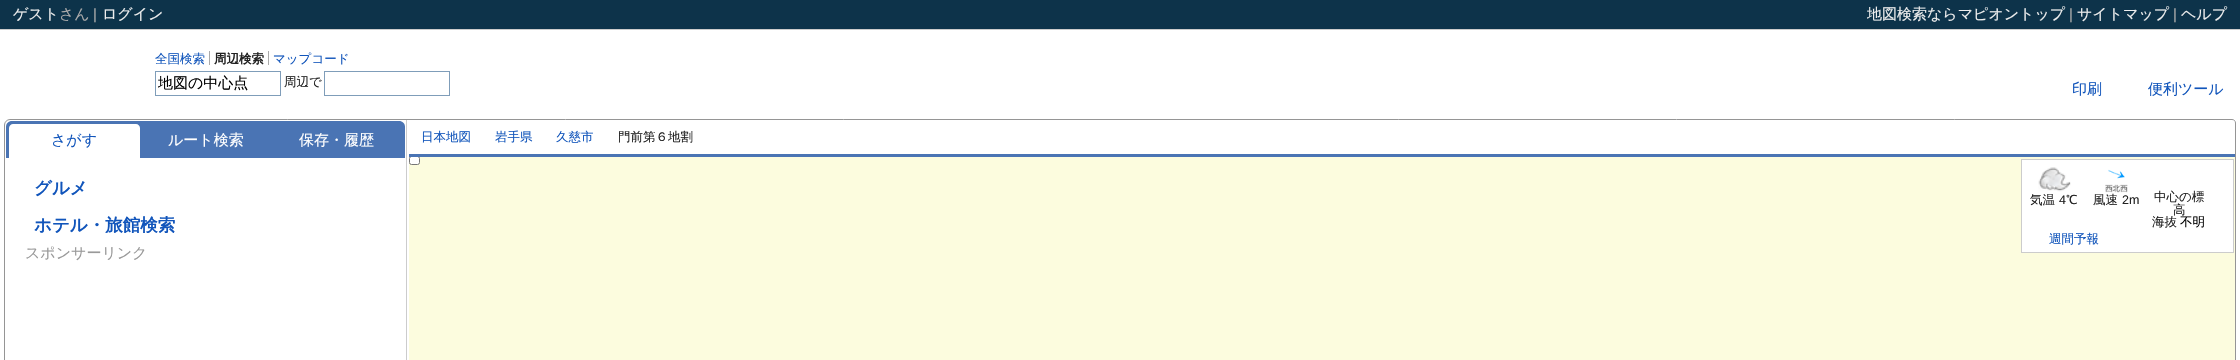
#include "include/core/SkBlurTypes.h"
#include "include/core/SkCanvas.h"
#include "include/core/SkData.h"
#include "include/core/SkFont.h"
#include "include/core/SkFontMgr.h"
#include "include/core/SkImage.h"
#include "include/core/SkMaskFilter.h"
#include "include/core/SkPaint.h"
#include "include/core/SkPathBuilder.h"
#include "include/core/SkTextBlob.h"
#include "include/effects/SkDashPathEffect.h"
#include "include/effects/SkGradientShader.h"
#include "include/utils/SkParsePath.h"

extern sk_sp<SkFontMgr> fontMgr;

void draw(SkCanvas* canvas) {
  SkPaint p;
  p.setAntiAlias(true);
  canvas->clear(SK_ColorWHITE);
  p.setColor(SkColorSetRGB(13, 51, 74));
  canvas->drawRect(SkRect::MakeLTRB(0, 0, 2240, 29), p);
  p.setColor(SkColorSetRGB(204, 204, 204));
  canvas->drawRect(SkRect::MakeLTRB(0, 29, 2240, 30), p);
  p.setColor(SkColorSetRGB(170, 170, 170));
  canvas->drawRect(SkRect::MakeLTRB(209, 51, 210, 65), p);
  canvas->drawRect(SkRect::MakeLTRB(268, 51, 269, 65), p);
  p.setStyle(SkPaint::kStroke_Style);
  p.setStrokeWidth(1);
  p.setColor(SkColorSetRGB(127, 157, 185));
  canvas->drawRect(SkRect::MakeLTRB(155.5f, 71.5f, 280.5f, 95.5f), p);
  canvas->drawRect(SkRect::MakeLTRB(324.5f, 71.5f, 449.5f, 95.5f), p);
  p.setColor(SkColorSetRGB(149, 149, 149));
  canvas->drawPath(SkPathBuilder().moveTo(10, 119.5f).lineTo(2232, 119.5f).cubicTo(2234, 119.5f, 2235.5f, 121, 2235.5f, 123).lineTo(2235.5f, 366.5f).lineTo(10, 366.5f).cubicTo(7, 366.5f, 4.5f, 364, 4.5f, 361).lineTo(4.5f, 125).cubicTo(4.5f, 122, 7, 119.5f, 10, 119.5f).close().detach(), p);
  p.setStyle(SkPaint::kFill_Style);
  p.setColor(SkColorSetRGB(204, 204, 204));
  canvas->drawRect(SkRect::MakeLTRB(406, 120, 407, 360), p);
  p.setColor(SkColorSetRGB(74, 116, 180));
  canvas->drawPath(SkPathBuilder().moveTo(12, 121).lineTo(399, 121).cubicTo(402.5f, 121, 405, 123.5f, 405, 127).lineTo(405, 158).lineTo(6, 158).lineTo(6, 127).cubicTo(6, 123.5f, 8.5f, 121, 12, 121).close().detach(), p);
  p.setColor(SK_ColorWHITE);
  canvas->drawPath(SkPathBuilder().moveTo(13, 124).lineTo(136, 124).cubicTo(138, 124, 140, 126, 140, 128).lineTo(140, 158).lineTo(9, 158).lineTo(9, 128).cubicTo(9, 126, 11, 124, 13, 124).close().detach(), p);
  p.setColor(SkColorSetRGB(252, 252, 222));
  canvas->drawRect(SkRect::MakeLTRB(409, 157, 2235, 360), p);
  p.setColor(SK_ColorWHITE);
  canvas->drawRoundRect(SkRect::MakeLTRB(409.5f, 156.5f, 419.5f, 164.5f), 2, 2, p);
  p.setStyle(SkPaint::kStroke_Style);
  p.setColor(SkColorSetRGB(118, 118, 118));
  canvas->drawRoundRect(SkRect::MakeLTRB(409.5f, 156.5f, 419.5f, 164.5f), 2, 2, p);
  p.setStyle(SkPaint::kFill_Style);
  p.setColor(SkColorSetRGB(74, 116, 180));
  canvas->drawRect(SkRect::MakeLTRB(409, 154, 2235, 157), p);
  p.setColor(SK_ColorWHITE);
  canvas->drawRect(SkRect::MakeLTRB(2021.5f, 159.5f, 2233.5f, 252.5f), p);
  p.setStyle(SkPaint::kStroke_Style);
  p.setColor(SkColorSetRGB(204, 204, 204));
  canvas->drawRect(SkRect::MakeLTRB(2021.5f, 159.5f, 2233.5f, 252.5f), p);
  canvas->drawImageRect(SkImages::DeferredFromEncodedData(SkData::MakeFromFileName("images/1.png")), SkRect::MakeLTRB(2038, 167, 2071, 192), SkSamplingOptions());
  canvas->drawImageRect(SkImages::DeferredFromEncodedData(SkData::MakeFromFileName("images/2.png")), SkRect::MakeLTRB(2105, 169, 2128, 193), SkSamplingOptions());
  SkFont font1(fontMgr->matchFamilyStyle("WenQuanYi Zen Hei", SkFontStyle(500, SkFontStyle::kNormal_Width, SkFontStyle::kUpright_Slant)), 15);
  font1.setSubpixel(true);
  p.setStyle(SkPaint::kFill_Style);
  p.setColor(SkColorSetRGB(238, 238, 238));
  canvas->drawString("ゲスト", 13, 19, font1, p);
  p.setColor(SkColorSetRGB(170, 170, 170));
  canvas->drawString("さん", 59, 19, font1, p);
  SkFont font2(fontMgr->matchFamilyStyle("Liberation Sans", SkFontStyle::Normal()), 15);
  font2.setSubpixel(true);
  canvas->drawString("|", 93, 19, font2, p);
  p.setColor(SkColorSetRGB(238, 238, 238));
  canvas->drawString("ログイン", 102, 19, font1, p);
  canvas->drawString("地図検索ならマピオントップ", 1867, 19, font1, p);
  p.setColor(SkColorSetRGB(170, 170, 170));
  canvas->drawString("|", 2069, 19, font2, p);
  p.setColor(SkColorSetRGB(238, 238, 238));
  canvas->drawString("サイトマップ", 2077, 19, font1, p);
  p.setColor(SkColorSetRGB(170, 170, 170));
  canvas->drawString("|", 2173, 19, font2, p);
  p.setColor(SkColorSetRGB(238, 238, 238));
  canvas->drawString("ヘルプ", 2181, 19, font1, p);
  SkFont font3(fontMgr->matchFamilyStyle("WenQuanYi Zen Hei", SkFontStyle(500, SkFontStyle::kNormal_Width, SkFontStyle::kUpright_Slant)), 12.5f);
  font3.setSubpixel(true);
  p.setColor(SkColorSetRGB(17, 85, 187));
  canvas->drawString("全国検索", 155, 63, font3, p);
  SkFont font4(fontMgr->matchFamilyStyle("WenQuanYi Zen Hei", SkFontStyle::Bold()), 12.5f);
  font4.setSubpixel(true);
  p.setColor(SkColorSetRGB(34, 34, 34));
  canvas->drawString("周辺検索", 214, 63, font4, p);
  p.setColor(SkColorSetRGB(17, 85, 187));
  canvas->drawString("マップコード", 273, 63, font3, p);
  canvas->save();
  canvas->clipRect(SkRect::MakeLTRB(158, 74, 279, 95));
  p.setColor(SK_ColorBLACK);
  canvas->drawString("地図の中心点", 158, 88, font1, p);
  canvas->restore();
  p.setColor(SkColorSetRGB(34, 34, 34));
  canvas->drawString("周辺で", 284, 86, font3, p);
  p.setColor(SkColorSetRGB(17, 85, 187));
  canvas->drawString("印刷", 2072, 94, font1, p);
  canvas->drawString("便利ツール", 2148, 94, font1, p);
  canvas->drawString("さがす", 51, 145, font1, p);
  p.setColor(SK_ColorWHITE);
  canvas->drawString("ルート検索", 168, 145, font1, p);
  canvas->drawString("保存・履歴", 299, 145, font1, p);
  SkFont font5(fontMgr->matchFamilyStyle("WenQuanYi Zen Hei", SkFontStyle::Bold()), 17.5f);
  font5.setSubpixel(true);
  p.setColor(SkColorSetRGB(17, 85, 187));
  canvas->drawString("グルメ", 34, 194, font5, p);
  canvas->save();
  canvas->clipRect(SkRect::MakeLTRB(6, 164, 404, 233));
  canvas->drawString("ホテル・旅館検索", 34, 231, font5, p);
  canvas->restore();
  p.setColor(SkColorSetRGB(153, 153, 153));
  canvas->drawString("スポンサーリンク", 25, 258, font1, p);
  p.setColor(SkColorSetRGB(17, 85, 187));
  canvas->drawString("日本地図", 421, 141, font3, p);
  canvas->drawString("岩手県", 495, 141, font3, p);
  canvas->drawString("久慈市", 556, 141, font3, p);
  p.setColor(SkColorSetRGB(34, 34, 34));
  canvas->drawString("門前第６地割", 618, 141, font3, p);
  canvas->drawString("気温", 2030, 204, font3, p);
  SkFont font6(fontMgr->matchFamilyStyle("Liberation Sans", SkFontStyle::Normal()), 12.5f);
  font6.setSubpixel(true);
  canvas->drawString("4", 2059, 204, font6, p);
  canvas->drawString("℃", 2066, 204, font3, p);
  canvas->drawString("風速", 2093, 204, font3, p);
  canvas->drawString("2m", 2122, 204, font6, p);
  canvas->drawString("中心の標", 2154, 201, font3, p);
  canvas->drawString("高", 2173, 214, font3, p);
  canvas->drawString("海抜", 2152, 226, font3, p);
  p.setColor(SK_ColorBLACK);
  canvas->drawString("不明", 2180, 226, font3, p);
  p.setColor(SkColorSetRGB(17, 85, 187));
  canvas->drawString("週間予報", 2049, 243, font3, p);
}
